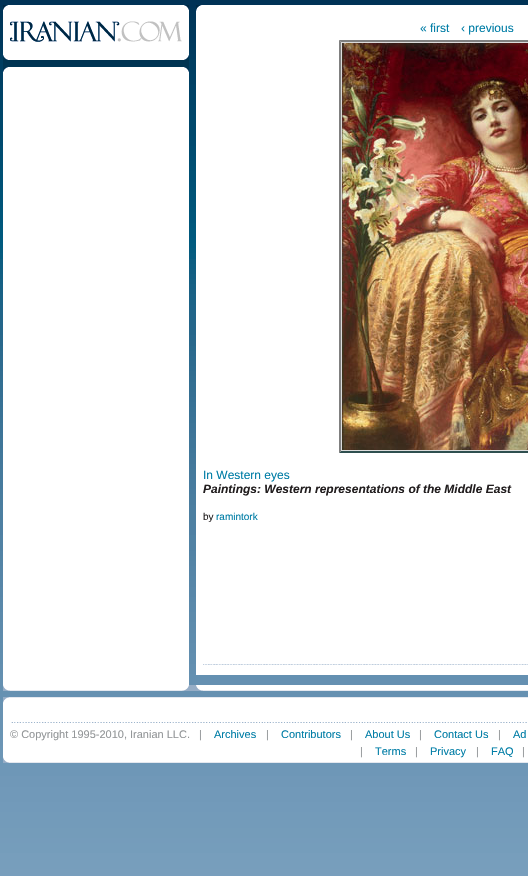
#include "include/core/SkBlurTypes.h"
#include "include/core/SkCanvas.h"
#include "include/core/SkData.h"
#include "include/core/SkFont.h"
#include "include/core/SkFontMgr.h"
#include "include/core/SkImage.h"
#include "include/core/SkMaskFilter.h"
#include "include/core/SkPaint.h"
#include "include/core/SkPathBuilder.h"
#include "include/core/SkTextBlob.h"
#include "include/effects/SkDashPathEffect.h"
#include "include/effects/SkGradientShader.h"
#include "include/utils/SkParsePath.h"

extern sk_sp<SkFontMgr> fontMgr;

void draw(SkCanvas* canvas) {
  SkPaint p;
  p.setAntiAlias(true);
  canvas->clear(SK_ColorWHITE);
  canvas->drawImageRect(SkImages::DeferredFromEncodedData(SkData::MakeFromFileName("images/1.png")), SkRect::MakeLTRB(0, 0, 528, 876), SkSamplingOptions());
  p.setColor(SK_ColorWHITE);
  canvas->drawRect(SkRect::MakeLTRB(3, 72, 189, 685), p);
  canvas->drawImageRect(SkImages::DeferredFromEncodedData(SkData::MakeFromFileName("images/2.png")), SkRect::MakeLTRB(3, 5, 189, 67), SkSamplingOptions());
  canvas->drawImageRect(SkImages::DeferredFromEncodedData(SkData::MakeFromFileName("images/3.png")), SkRect::MakeLTRB(3, 67, 189, 72), SkSamplingOptions());
  canvas->drawRect(SkRect::MakeLTRB(196, 5, 528, 675), p);
  canvas->drawImageRect(SkImages::DeferredFromEncodedData(SkData::MakeFromFileName("images/4.png")), SkRect::MakeLTRB(196, 5, 202, 11), SkSamplingOptions());
  canvas->drawImageRect(SkImages::DeferredFromEncodedData(SkData::MakeFromFileName("images/5.png")), SkRect::MakeLTRB(203, 664, 528, 665), SkSamplingOptions());
  p.setColor(SkColorSetRGB(220, 220, 220));
  canvas->drawRect(SkRect::MakeLTRB(339, 40, 528, 453), p);
  p.setColor(SkColorSetRGB(128, 128, 128));
  canvas->drawPath(SkPathBuilder().moveTo(339, 40).lineTo(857, 40).lineTo(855, 42).lineTo(341, 42).close().detach(), p);
  p.setColor(SkColorSetRGB(47, 79, 79));
  canvas->drawPath(SkPathBuilder().moveTo(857, 453).lineTo(339, 453).lineTo(341, 451).lineTo(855, 451).close().detach(), p);
  p.setColor(SkColorSetRGB(128, 128, 128));
  canvas->drawPath(SkPathBuilder().moveTo(339, 453).lineTo(339, 40).lineTo(341, 42).lineTo(341, 451).close().detach(), p);
  canvas->drawImageRect(SkImages::DeferredFromEncodedData(SkData::MakeFromFileName("images/6.png")), SkRect::MakeLTRB(342, 43, 528, 450), SkSamplingOptions());
  canvas->drawImageRect(SkImages::DeferredFromEncodedData(SkData::MakeFromFileName("images/7.png")), SkRect::MakeLTRB(3, 685, 528, 691), SkSamplingOptions());
  p.setColor(SK_ColorWHITE);
  canvas->drawRect(SkRect::MakeLTRB(3, 703, 528, 757), p);
  canvas->drawImageRect(SkImages::DeferredFromEncodedData(SkData::MakeFromFileName("images/8.png")), SkRect::MakeLTRB(3, 697, 528, 703), SkSamplingOptions());
  canvas->drawImageRect(SkImages::DeferredFromEncodedData(SkData::MakeFromFileName("images/9.png")), SkRect::MakeLTRB(11, 722, 527, 723), SkSamplingOptions());
  canvas->drawImageRect(SkImages::DeferredFromEncodedData(SkData::MakeFromFileName("images/10.png")), SkRect::MakeLTRB(3, 757, 528, 763), SkSamplingOptions());
  SkFont font1(fontMgr->matchFamilyStyle("Liberation Sans", SkFontStyle::Normal()), 12);
  font1.setSubpixel(true);
  p.setColor(SkColorSetRGB(0, 125, 166));
  canvas->drawString("« first", 420, 32, font1, p);
  canvas->drawString("‹ previous", 461, 32, font1, p);
  canvas->drawString("In Western eyes", 203, 479, font1, p);
  SkFont font2(fontMgr->matchFamilyStyle("Liberation Sans", SkFontStyle::BoldItalic()), 12);
  font2.setSubpixel(true);
  p.setColor(SkColorSetRGB(34, 30, 31));
  canvas->drawString("Paintings: Western representations of the Middle East", 203, 493, font2, p);
  SkFont font3(fontMgr->matchFamilyStyle("Liberation Sans", SkFontStyle::Normal()), 10);
  font3.setSubpixel(true);
  canvas->drawString("by", 203, 520, font3, p);
  p.setColor(SkColorSetRGB(0, 125, 166));
  canvas->drawString("ramintork", 216, 520, font3, p);
  SkFont font4(fontMgr->matchFamilyStyle("Liberation Sans", SkFontStyle::Normal()), 11);
  font4.setSubpixel(true);
  p.setColor(SkColorSetRGB(147, 150, 152));
  canvas->drawString("© Copyright 1995-2010, Iranian LLC.", 10, 738, font4, p);
  canvas->drawString("|", 199, 738, font4, p);
  p.setColor(SkColorSetRGB(0, 125, 166));
  canvas->drawString("Archives", 214, 738, font4, p);
  p.setColor(SkColorSetRGB(147, 150, 152));
  canvas->drawString("|", 266, 738, font4, p);
  p.setColor(SkColorSetRGB(0, 125, 166));
  canvas->drawString("Contributors", 281, 738, font4, p);
  p.setColor(SkColorSetRGB(147, 150, 152));
  canvas->drawString("|", 350, 738, font4, p);
  p.setColor(SkColorSetRGB(0, 125, 166));
  canvas->drawString("About Us", 365, 738, font4, p);
  p.setColor(SkColorSetRGB(147, 150, 152));
  canvas->drawString("|", 419, 738, font4, p);
  p.setColor(SkColorSetRGB(0, 125, 166));
  canvas->drawString("Contact Us", 434, 738, font4, p);
  p.setColor(SkColorSetRGB(147, 150, 152));
  canvas->drawString("|", 498, 738, font4, p);
  p.setColor(SkColorSetRGB(0, 125, 166));
  canvas->drawString("Ad", 513, 738, font4, p);
  p.setColor(SkColorSetRGB(147, 150, 152));
  canvas->drawString("|", 360, 755, font4, p);
  p.setColor(SkColorSetRGB(0, 125, 166));
  canvas->drawString("Terms", 375, 755, font4, p);
  p.setColor(SkColorSetRGB(147, 150, 152));
  canvas->drawString("|", 415, 755, font4, p);
  p.setColor(SkColorSetRGB(0, 125, 166));
  canvas->drawString("Privacy", 430, 755, font4, p);
  p.setColor(SkColorSetRGB(147, 150, 152));
  canvas->drawString("|", 476, 755, font4, p);
  p.setColor(SkColorSetRGB(0, 125, 166));
  canvas->drawString("FAQ", 491, 755, font4, p);
  p.setColor(SkColorSetRGB(147, 150, 152));
  canvas->drawString("|", 522, 755, font4, p);
}
